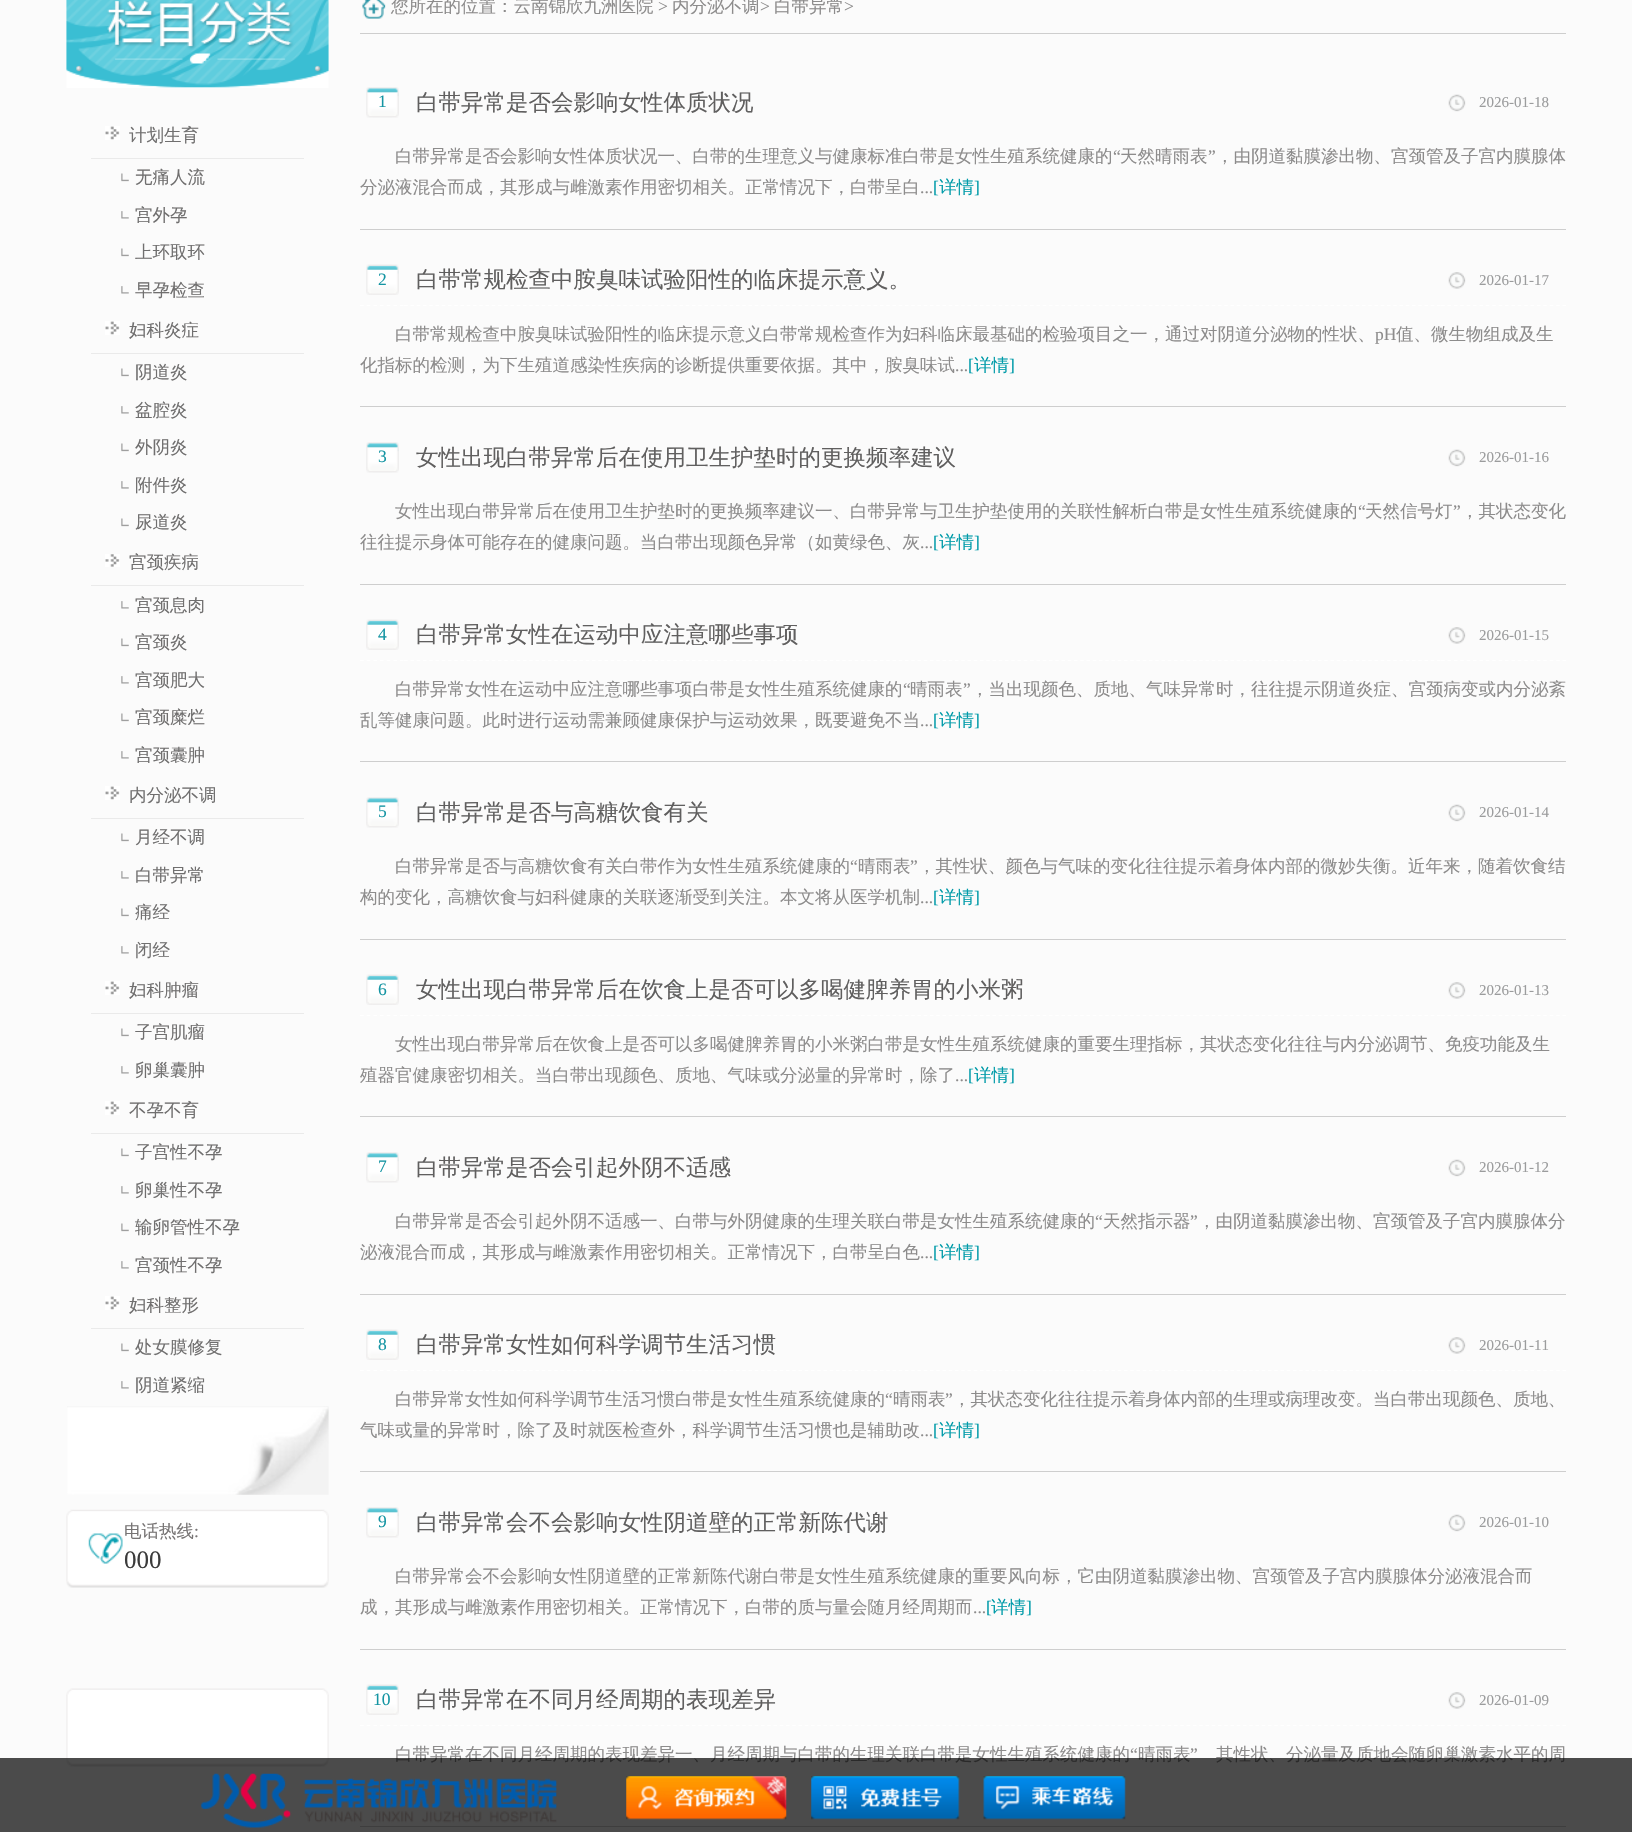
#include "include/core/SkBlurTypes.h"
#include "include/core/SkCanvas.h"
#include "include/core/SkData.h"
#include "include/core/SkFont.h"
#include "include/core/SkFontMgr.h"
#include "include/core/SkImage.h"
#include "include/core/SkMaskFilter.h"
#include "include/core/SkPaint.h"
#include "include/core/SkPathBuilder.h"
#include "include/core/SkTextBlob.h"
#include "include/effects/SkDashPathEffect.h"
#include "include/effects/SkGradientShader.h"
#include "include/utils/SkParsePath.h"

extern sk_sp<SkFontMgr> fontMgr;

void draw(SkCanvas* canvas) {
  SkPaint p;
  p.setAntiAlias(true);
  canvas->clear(SkColorSetRGB(251, 251, 251));
  canvas->drawImageRect(SkImages::DeferredFromEncodedData(SkData::MakeFromFileName("images/1.png")), SkRect::MakeLTRB(66, 0, 329, 88), SkSamplingOptions());
  canvas->drawImageRect(SkImages::DeferredFromEncodedData(SkData::MakeFromFileName("images/2.png")), SkRect::MakeLTRB(105, 126, 120, 140), SkSamplingOptions());
  p.setColor(SkColorSetRGB(234, 234, 234));
  canvas->drawRect(SkRect::MakeLTRB(91, 158, 304, 159), p);
  canvas->drawImageRect(SkImages::DeferredFromEncodedData(SkData::MakeFromFileName("images/3.png")), SkRect::MakeLTRB(121, 173, 129, 182), SkSamplingOptions());
  canvas->drawImageRect(SkImages::DeferredFromEncodedData(SkData::MakeFromFileName("images/4.png")), SkRect::MakeLTRB(121, 211, 129, 219), SkSamplingOptions());
  canvas->drawImageRect(SkImages::DeferredFromEncodedData(SkData::MakeFromFileName("images/3.png")), SkRect::MakeLTRB(121, 248, 129, 257), SkSamplingOptions());
  canvas->drawImageRect(SkImages::DeferredFromEncodedData(SkData::MakeFromFileName("images/4.png")), SkRect::MakeLTRB(121, 286, 129, 294), SkSamplingOptions());
  canvas->drawImageRect(SkImages::DeferredFromEncodedData(SkData::MakeFromFileName("images/2.png")), SkRect::MakeLTRB(105, 321, 120, 335), SkSamplingOptions());
  canvas->drawRect(SkRect::MakeLTRB(91, 353, 304, 354), p);
  canvas->drawImageRect(SkImages::DeferredFromEncodedData(SkData::MakeFromFileName("images/3.png")), SkRect::MakeLTRB(121, 368, 129, 377), SkSamplingOptions());
  canvas->drawImageRect(SkImages::DeferredFromEncodedData(SkData::MakeFromFileName("images/4.png")), SkRect::MakeLTRB(121, 406, 129, 414), SkSamplingOptions());
  canvas->drawImageRect(SkImages::DeferredFromEncodedData(SkData::MakeFromFileName("images/3.png")), SkRect::MakeLTRB(121, 443, 129, 452), SkSamplingOptions());
  canvas->drawImageRect(SkImages::DeferredFromEncodedData(SkData::MakeFromFileName("images/5.png")), SkRect::MakeLTRB(121, 481, 129, 489), SkSamplingOptions());
  canvas->drawImageRect(SkImages::DeferredFromEncodedData(SkData::MakeFromFileName("images/3.png")), SkRect::MakeLTRB(121, 518, 129, 527), SkSamplingOptions());
  canvas->drawImageRect(SkImages::DeferredFromEncodedData(SkData::MakeFromFileName("images/6.png")), SkRect::MakeLTRB(105, 554, 120, 567), SkSamplingOptions());
  canvas->drawRect(SkRect::MakeLTRB(91, 585, 304, 586), p);
  canvas->drawImageRect(SkImages::DeferredFromEncodedData(SkData::MakeFromFileName("images/4.png")), SkRect::MakeLTRB(121, 601, 129, 609), SkSamplingOptions());
  canvas->drawImageRect(SkImages::DeferredFromEncodedData(SkData::MakeFromFileName("images/3.png")), SkRect::MakeLTRB(121, 638, 129, 647), SkSamplingOptions());
  canvas->drawImageRect(SkImages::DeferredFromEncodedData(SkData::MakeFromFileName("images/4.png")), SkRect::MakeLTRB(121, 676, 129, 684), SkSamplingOptions());
  canvas->drawImageRect(SkImages::DeferredFromEncodedData(SkData::MakeFromFileName("images/3.png")), SkRect::MakeLTRB(121, 713, 129, 722), SkSamplingOptions());
  canvas->drawImageRect(SkImages::DeferredFromEncodedData(SkData::MakeFromFileName("images/4.png")), SkRect::MakeLTRB(121, 751, 129, 759), SkSamplingOptions());
  canvas->drawImageRect(SkImages::DeferredFromEncodedData(SkData::MakeFromFileName("images/2.png")), SkRect::MakeLTRB(105, 786, 120, 800), SkSamplingOptions());
  canvas->drawRect(SkRect::MakeLTRB(91, 818, 304, 819), p);
  canvas->drawImageRect(SkImages::DeferredFromEncodedData(SkData::MakeFromFileName("images/3.png")), SkRect::MakeLTRB(121, 833, 129, 842), SkSamplingOptions());
  canvas->drawImageRect(SkImages::DeferredFromEncodedData(SkData::MakeFromFileName("images/5.png")), SkRect::MakeLTRB(121, 871, 129, 879), SkSamplingOptions());
  canvas->drawImageRect(SkImages::DeferredFromEncodedData(SkData::MakeFromFileName("images/3.png")), SkRect::MakeLTRB(121, 908, 129, 917), SkSamplingOptions());
  canvas->drawImageRect(SkImages::DeferredFromEncodedData(SkData::MakeFromFileName("images/4.png")), SkRect::MakeLTRB(121, 946, 129, 954), SkSamplingOptions());
  canvas->drawImageRect(SkImages::DeferredFromEncodedData(SkData::MakeFromFileName("images/2.png")), SkRect::MakeLTRB(105, 981, 120, 995), SkSamplingOptions());
  canvas->drawRect(SkRect::MakeLTRB(91, 1013, 304, 1014), p);
  canvas->drawImageRect(SkImages::DeferredFromEncodedData(SkData::MakeFromFileName("images/3.png")), SkRect::MakeLTRB(121, 1028, 129, 1037), SkSamplingOptions());
  canvas->drawImageRect(SkImages::DeferredFromEncodedData(SkData::MakeFromFileName("images/4.png")), SkRect::MakeLTRB(121, 1066, 129, 1074), SkSamplingOptions());
  canvas->drawImageRect(SkImages::DeferredFromEncodedData(SkData::MakeFromFileName("images/2.png")), SkRect::MakeLTRB(105, 1101, 120, 1115), SkSamplingOptions());
  canvas->drawRect(SkRect::MakeLTRB(91, 1133, 304, 1134), p);
  canvas->drawImageRect(SkImages::DeferredFromEncodedData(SkData::MakeFromFileName("images/3.png")), SkRect::MakeLTRB(121, 1148, 129, 1157), SkSamplingOptions());
  canvas->drawImageRect(SkImages::DeferredFromEncodedData(SkData::MakeFromFileName("images/4.png")), SkRect::MakeLTRB(121, 1186, 129, 1194), SkSamplingOptions());
  canvas->drawImageRect(SkImages::DeferredFromEncodedData(SkData::MakeFromFileName("images/3.png")), SkRect::MakeLTRB(121, 1223, 129, 1232), SkSamplingOptions());
  canvas->drawImageRect(SkImages::DeferredFromEncodedData(SkData::MakeFromFileName("images/4.png")), SkRect::MakeLTRB(121, 1261, 129, 1269), SkSamplingOptions());
  canvas->drawImageRect(SkImages::DeferredFromEncodedData(SkData::MakeFromFileName("images/2.png")), SkRect::MakeLTRB(105, 1296, 120, 1310), SkSamplingOptions());
  canvas->drawRect(SkRect::MakeLTRB(91, 1328, 304, 1329), p);
  canvas->drawImageRect(SkImages::DeferredFromEncodedData(SkData::MakeFromFileName("images/3.png")), SkRect::MakeLTRB(121, 1343, 129, 1352), SkSamplingOptions());
  canvas->drawImageRect(SkImages::DeferredFromEncodedData(SkData::MakeFromFileName("images/4.png")), SkRect::MakeLTRB(121, 1381, 129, 1389), SkSamplingOptions());
  canvas->drawImageRect(SkImages::DeferredFromEncodedData(SkData::MakeFromFileName("images/7.png")), SkRect::MakeLTRB(67, 1406, 329, 1495), SkSamplingOptions());
  canvas->drawImageRect(SkImages::DeferredFromEncodedData(SkData::MakeFromFileName("images/8.png")), SkRect::MakeLTRB(66, 1509, 329, 1588), SkSamplingOptions());
  canvas->drawImageRect(SkImages::DeferredFromEncodedData(SkData::MakeFromFileName("images/9.png")), SkRect::MakeLTRB(88, 1533, 123, 1564), SkSamplingOptions());
  canvas->drawImageRect(SkImages::DeferredFromEncodedData(SkData::MakeFromFileName("images/10.png")), SkRect::MakeLTRB(66, 1688, 329, 1767), SkSamplingOptions());
  canvas->drawImageRect(SkImages::DeferredFromEncodedData(SkData::MakeFromFileName("images/11.png")), SkRect::MakeLTRB(362, 0, 386, 19), SkSamplingOptions());
  p.setColor(SkColorSetRGB(206, 206, 206));
  canvas->drawRect(SkRect::MakeLTRB(360, 33, 1566, 34), p);
  canvas->drawRect(SkRect::MakeLTRB(360, 229, 1566, 230), p);
  canvas->drawImageRect(SkImages::DeferredFromEncodedData(SkData::MakeFromFileName("images/12.png")), SkRect::MakeLTRB(366, 87, 399, 118), SkSamplingOptions());
  canvas->drawImageRect(SkImages::DeferredFromEncodedData(SkData::MakeFromFileName("images/13.png")), SkRect::MakeLTRB(1448, 94, 1466, 112), SkSamplingOptions());
  canvas->drawRect(SkRect::MakeLTRB(360, 406, 1566, 407), p);
  canvas->drawImageRect(SkImages::DeferredFromEncodedData(SkData::MakeFromFileName("images/14.png")), SkRect::MakeLTRB(366, 264, 399, 295), SkSamplingOptions());
  p.setStyle(SkPaint::kStroke_Style);
  p.setStrokeWidth(1.2f);
  p.setColor(SK_ColorWHITE);
  p.setPathEffect(SkDashPathEffect::Make({{3.75f, 2.91f}}, 0));
  canvas->drawPath(SkPathBuilder().moveTo(360, 305.5f).lineTo(404, 305.5f).detach(), p);
  p.setPathEffect(nullptr);
  p.setPathEffect(SkDashPathEffect::Make({{3.75f, 2.51f}}, 0));
  canvas->drawPath(SkPathBuilder().moveTo(404, 305.5f).lineTo(1441, 305.5f).detach(), p);
  p.setPathEffect(nullptr);
  canvas->drawImageRect(SkImages::DeferredFromEncodedData(SkData::MakeFromFileName("images/15.png")), SkRect::MakeLTRB(1448, 272, 1466, 289), SkSamplingOptions());
  p.setPathEffect(SkDashPathEffect::Make({{3.75f, 2.64f}}, 0));
  canvas->drawPath(SkPathBuilder().moveTo(1441, 305.5f).lineTo(1566, 305.5f).detach(), p);
  p.setPathEffect(nullptr);
  p.setStyle(SkPaint::kFill_Style);
  p.setColor(SkColorSetRGB(206, 206, 206));
  canvas->drawRect(SkRect::MakeLTRB(360, 584, 1566, 585), p);
  canvas->drawImageRect(SkImages::DeferredFromEncodedData(SkData::MakeFromFileName("images/12.png")), SkRect::MakeLTRB(366, 442, 399, 473), SkSamplingOptions());
  canvas->drawImageRect(SkImages::DeferredFromEncodedData(SkData::MakeFromFileName("images/16.png")), SkRect::MakeLTRB(1448, 449, 1466, 467), SkSamplingOptions());
  canvas->drawRect(SkRect::MakeLTRB(360, 761, 1566, 762), p);
  canvas->drawImageRect(SkImages::DeferredFromEncodedData(SkData::MakeFromFileName("images/14.png")), SkRect::MakeLTRB(366, 619, 399, 650), SkSamplingOptions());
  p.setStyle(SkPaint::kStroke_Style);
  p.setColor(SK_ColorWHITE);
  p.setPathEffect(SkDashPathEffect::Make({{3.75f, 2.91f}}, 0));
  canvas->drawPath(SkPathBuilder().moveTo(360, 660.5f).lineTo(404, 660.5f).detach(), p);
  p.setPathEffect(nullptr);
  p.setPathEffect(SkDashPathEffect::Make({{3.75f, 2.51f}}, 0));
  canvas->drawPath(SkPathBuilder().moveTo(404, 660.5f).lineTo(1441, 660.5f).detach(), p);
  p.setPathEffect(nullptr);
  canvas->drawImageRect(SkImages::DeferredFromEncodedData(SkData::MakeFromFileName("images/15.png")), SkRect::MakeLTRB(1448, 627, 1466, 644), SkSamplingOptions());
  p.setPathEffect(SkDashPathEffect::Make({{3.75f, 2.64f}}, 0));
  canvas->drawPath(SkPathBuilder().moveTo(1441, 660.5f).lineTo(1566, 660.5f).detach(), p);
  p.setPathEffect(nullptr);
  p.setStyle(SkPaint::kFill_Style);
  p.setColor(SkColorSetRGB(206, 206, 206));
  canvas->drawRect(SkRect::MakeLTRB(360, 939, 1566, 940), p);
  canvas->drawImageRect(SkImages::DeferredFromEncodedData(SkData::MakeFromFileName("images/12.png")), SkRect::MakeLTRB(366, 797, 399, 828), SkSamplingOptions());
  canvas->drawImageRect(SkImages::DeferredFromEncodedData(SkData::MakeFromFileName("images/16.png")), SkRect::MakeLTRB(1448, 804, 1466, 822), SkSamplingOptions());
  canvas->drawRect(SkRect::MakeLTRB(360, 1116, 1566, 1117), p);
  canvas->drawImageRect(SkImages::DeferredFromEncodedData(SkData::MakeFromFileName("images/14.png")), SkRect::MakeLTRB(366, 974, 399, 1005), SkSamplingOptions());
  p.setStyle(SkPaint::kStroke_Style);
  p.setColor(SK_ColorWHITE);
  p.setPathEffect(SkDashPathEffect::Make({{3.75f, 2.91f}}, 0));
  canvas->drawPath(SkPathBuilder().moveTo(360, 1015.5f).lineTo(404, 1015.5f).detach(), p);
  p.setPathEffect(nullptr);
  p.setPathEffect(SkDashPathEffect::Make({{3.75f, 2.51f}}, 0));
  canvas->drawPath(SkPathBuilder().moveTo(404, 1015.5f).lineTo(1441, 1015.5f).detach(), p);
  p.setPathEffect(nullptr);
  canvas->drawImageRect(SkImages::DeferredFromEncodedData(SkData::MakeFromFileName("images/15.png")), SkRect::MakeLTRB(1448, 982, 1466, 999), SkSamplingOptions());
  p.setPathEffect(SkDashPathEffect::Make({{3.75f, 2.64f}}, 0));
  canvas->drawPath(SkPathBuilder().moveTo(1441, 1015.5f).lineTo(1566, 1015.5f).detach(), p);
  p.setPathEffect(nullptr);
  p.setStyle(SkPaint::kFill_Style);
  p.setColor(SkColorSetRGB(206, 206, 206));
  canvas->drawRect(SkRect::MakeLTRB(360, 1294, 1566, 1295), p);
  canvas->drawImageRect(SkImages::DeferredFromEncodedData(SkData::MakeFromFileName("images/17.png")), SkRect::MakeLTRB(366, 1152, 399, 1183), SkSamplingOptions());
  canvas->drawImageRect(SkImages::DeferredFromEncodedData(SkData::MakeFromFileName("images/18.png")), SkRect::MakeLTRB(1448, 1159, 1466, 1177), SkSamplingOptions());
  canvas->drawRect(SkRect::MakeLTRB(360, 1471, 1566, 1472), p);
  canvas->drawImageRect(SkImages::DeferredFromEncodedData(SkData::MakeFromFileName("images/14.png")), SkRect::MakeLTRB(366, 1329, 399, 1360), SkSamplingOptions());
  p.setStyle(SkPaint::kStroke_Style);
  p.setColor(SK_ColorWHITE);
  p.setPathEffect(SkDashPathEffect::Make({{3.75f, 2.91f}}, 0));
  canvas->drawPath(SkPathBuilder().moveTo(360, 1370.5f).lineTo(404, 1370.5f).detach(), p);
  p.setPathEffect(nullptr);
  p.setPathEffect(SkDashPathEffect::Make({{3.75f, 2.51f}}, 0));
  canvas->drawPath(SkPathBuilder().moveTo(404, 1370.5f).lineTo(1441, 1370.5f).detach(), p);
  p.setPathEffect(nullptr);
  canvas->drawImageRect(SkImages::DeferredFromEncodedData(SkData::MakeFromFileName("images/15.png")), SkRect::MakeLTRB(1448, 1337, 1466, 1354), SkSamplingOptions());
  p.setPathEffect(SkDashPathEffect::Make({{3.75f, 2.64f}}, 0));
  canvas->drawPath(SkPathBuilder().moveTo(1441, 1370.5f).lineTo(1566, 1370.5f).detach(), p);
  p.setPathEffect(nullptr);
  p.setStyle(SkPaint::kFill_Style);
  p.setColor(SkColorSetRGB(206, 206, 206));
  canvas->drawRect(SkRect::MakeLTRB(360, 1649, 1566, 1650), p);
  canvas->drawImageRect(SkImages::DeferredFromEncodedData(SkData::MakeFromFileName("images/12.png")), SkRect::MakeLTRB(366, 1507, 399, 1538), SkSamplingOptions());
  canvas->drawImageRect(SkImages::DeferredFromEncodedData(SkData::MakeFromFileName("images/16.png")), SkRect::MakeLTRB(1448, 1514, 1466, 1532), SkSamplingOptions());
  canvas->drawRect(SkRect::MakeLTRB(360, 1826, 1566, 1827), p);
  canvas->drawImageRect(SkImages::DeferredFromEncodedData(SkData::MakeFromFileName("images/14.png")), SkRect::MakeLTRB(366, 1684, 399, 1715), SkSamplingOptions());
  p.setStyle(SkPaint::kStroke_Style);
  p.setColor(SK_ColorWHITE);
  p.setPathEffect(SkDashPathEffect::Make({{3.75f, 2.91f}}, 0));
  canvas->drawPath(SkPathBuilder().moveTo(360, 1725.5f).lineTo(404, 1725.5f).detach(), p);
  p.setPathEffect(nullptr);
  p.setPathEffect(SkDashPathEffect::Make({{3.75f, 2.51f}}, 0));
  canvas->drawPath(SkPathBuilder().moveTo(404, 1725.5f).lineTo(1441, 1725.5f).detach(), p);
  p.setPathEffect(nullptr);
  canvas->drawImageRect(SkImages::DeferredFromEncodedData(SkData::MakeFromFileName("images/15.png")), SkRect::MakeLTRB(1448, 1692, 1466, 1709), SkSamplingOptions());
  p.setPathEffect(SkDashPathEffect::Make({{3.75f, 2.64f}}, 0));
  canvas->drawPath(SkPathBuilder().moveTo(1441, 1725.5f).lineTo(1566, 1725.5f).detach(), p);
  p.setPathEffect(nullptr);
  SkFont font1(fontMgr->matchFamilyStyle("WenQuanYi Zen Hei", SkFontStyle(500, SkFontStyle::kNormal_Width, SkFontStyle::kUpright_Slant)), 17.5f);
  font1.setSubpixel(true);
  p.setStyle(SkPaint::kFill_Style);
  p.setColor(SkColorSetRGB(112, 111, 111));
  canvas->drawString("计划生育", 129, 141, font1, p);
  canvas->drawString("无痛人流", 135, 183, font1, p);
  canvas->drawString("宫外孕", 135, 221, font1, p);
  canvas->drawString("上环取环", 135, 258, font1, p);
  canvas->drawString("早孕检查", 135, 296, font1, p);
  canvas->drawString("妇科炎症", 129, 336, font1, p);
  canvas->drawString("阴道炎", 135, 378, font1, p);
  canvas->drawString("盆腔炎", 135, 416, font1, p);
  canvas->drawString("外阴炎", 135, 453, font1, p);
  canvas->drawString("附件炎", 135, 491, font1, p);
  canvas->drawString("尿道炎", 135, 528, font1, p);
  canvas->drawString("宫颈疾病", 129, 568, font1, p);
  canvas->drawString("宫颈息肉", 135, 611, font1, p);
  canvas->drawString("宫颈炎", 135, 648, font1, p);
  canvas->drawString("宫颈肥大", 135, 686, font1, p);
  canvas->drawString("宫颈糜烂", 135, 723, font1, p);
  canvas->drawString("宫颈囊肿", 135, 761, font1, p);
  canvas->drawString("内分泌不调", 129, 801, font1, p);
  canvas->drawString("月经不调", 135, 843, font1, p);
  canvas->drawString("白带异常", 135, 881, font1, p);
  canvas->drawString("痛经", 135, 918, font1, p);
  canvas->drawString("闭经", 135, 956, font1, p);
  canvas->drawString("妇科肿瘤", 129, 996, font1, p);
  canvas->drawString("子宫肌瘤", 135, 1038, font1, p);
  canvas->drawString("卵巢囊肿", 135, 1076, font1, p);
  canvas->drawString("不孕不育", 129, 1116, font1, p);
  canvas->drawString("子宫性不孕", 135, 1158, font1, p);
  canvas->drawString("卵巢性不孕", 135, 1196, font1, p);
  canvas->drawString("输卵管性不孕", 135, 1233, font1, p);
  canvas->drawString("宫颈性不孕", 135, 1271, font1, p);
  canvas->drawString("妇科整形", 129, 1311, font1, p);
  canvas->drawString("处女膜修复", 135, 1353, font1, p);
  canvas->drawString("阴道紧缩", 135, 1391, font1, p);
  p.setColor(SkColorSetRGB(119, 116, 116));
  canvas->drawString("电话热线", 124, 1537, font1, p);
  SkFont font2(fontMgr->matchFamilyStyle("Liberation Serif", SkFontStyle::Normal()), 17.5f);
  font2.setSubpixel(true);
  canvas->drawString(":", 194, 1537, font2, p);
  SkFont font3(fontMgr->matchFamilyStyle("Liberation Serif", SkFontStyle::Normal()), 25);
  font3.setSubpixel(true);
  p.setColor(SkColorSetRGB(59, 59, 59));
  canvas->drawString("000", 124, 1568, font3, p);
  p.setColor(SkColorSetRGB(141, 140, 140));
  canvas->drawString("您所在的位置：云南锦欣九洲医院", 391, 12, font1, p);
  canvas->drawString(">", 658, 12, font2, p);
  canvas->drawString("内分泌不调", 672, 12, font1, p);
  canvas->drawString(">", 760, 12, font2, p);
  canvas->drawString("白带异常", 774, 12, font1, p);
  canvas->drawString(">", 844, 12, font2, p);
  p.setColor(SkColorSetRGB(21, 149, 163));
  canvas->drawString("1", 378, 107, font2, p);
  SkFont font4(fontMgr->matchFamilyStyle("WenQuanYi Zen Hei", SkFontStyle(500, SkFontStyle::kNormal_Width, SkFontStyle::kUpright_Slant)), 22.5f);
  font4.setSubpixel(true);
  p.setColor(SkColorSetRGB(96, 95, 95));
  canvas->drawString("白带异常是否会影响女性体质状况", 416, 110, font4, p);
  SkFont font5(fontMgr->matchFamilyStyle("Liberation Serif", SkFontStyle::Normal()), 15);
  font5.setSubpixel(true);
  p.setColor(SkColorSetRGB(155, 156, 157));
  canvas->drawString("2026-01-18", 1479, 107, font5, p);
  p.setColor(SkColorSetRGB(141, 140, 140));
  canvas->drawString("白带异常是否会影响女性体质状况一、白带的生理意义与健康标准白带是女性生殖系统健康的", 395, 162, font1, p);
  canvas->drawString("“", 1113, 162, font2, p);
  canvas->drawString("天然晴雨表", 1120, 162, font1, p);
  canvas->drawString("”", 1208, 162, font2, p);
  canvas->drawString("，由阴道黏膜渗出物、宫颈管及子宫内膜腺体", 1216, 162, font1, p);
  canvas->drawString("分泌液混合而成，其形成与雌激素作用密切相关。正常情况下，白带呈白", 360, 193, font1, p);
  canvas->drawString("...", 920, 193, font2, p);
  p.setColor(SkColorSetRGB(0, 155, 169));
  canvas->drawString("[", 933, 193, font2, p);
  canvas->drawString("详情", 939, 193, font1, p);
  canvas->drawString("]", 974, 193, font2, p);
  p.setColor(SkColorSetRGB(21, 149, 163));
  canvas->drawString("2", 378, 285, font2, p);
  p.setColor(SkColorSetRGB(96, 95, 95));
  canvas->drawString("白带常规检查中胺臭味试验阳性的临床提示意义。", 416, 287, font4, p);
  p.setColor(SkColorSetRGB(155, 156, 157));
  canvas->drawString("2026-01-17", 1479, 285, font5, p);
  p.setColor(SkColorSetRGB(141, 140, 140));
  canvas->drawString("白带常规检查中胺臭味试验阳性的临床提示意义白带常规检查作为妇科临床最基础的检验项目之一，通过对阴道分泌物的性状、", 395, 340, font1, p);
  canvas->drawString("pH", 1375, 340, font2, p);
  canvas->drawString("值、微生物组成及生", 1396, 340, font1, p);
  canvas->drawString("化指标的检测，为下生殖道感染性疾病的诊断提供重要依据。其中，胺臭味试", 360, 371, font1, p);
  canvas->drawString("...", 955, 371, font2, p);
  p.setColor(SkColorSetRGB(0, 155, 169));
  canvas->drawString("[", 968, 371, font2, p);
  canvas->drawString("详情", 974, 371, font1, p);
  canvas->drawString("]", 1009, 371, font2, p);
  p.setColor(SkColorSetRGB(21, 149, 163));
  canvas->drawString("3", 378, 462, font2, p);
  p.setColor(SkColorSetRGB(96, 95, 95));
  canvas->drawString("女性出现白带异常后在使用卫生护垫时的更换频率建议", 416, 465, font4, p);
  p.setColor(SkColorSetRGB(155, 156, 157));
  canvas->drawString("2026-01-16", 1479, 462, font5, p);
  p.setColor(SkColorSetRGB(141, 140, 140));
  canvas->drawString("女性出现白带异常后在使用卫生护垫时的更换频率建议一、白带异常与卫生护垫使用的关联性解析白带是女性生殖系统健康的", 395, 517, font1, p);
  canvas->drawString("“", 1358, 517, font2, p);
  canvas->drawString("天然信号灯", 1365, 517, font1, p);
  canvas->drawString("”", 1453, 517, font2, p);
  canvas->drawString("，其状态变化", 1461, 517, font1, p);
  canvas->drawString("往往提示身体可能存在的健康问题。当白带出现颜色异常（如黄绿色、灰", 360, 548, font1, p);
  canvas->drawString("...", 920, 548, font2, p);
  p.setColor(SkColorSetRGB(0, 155, 169));
  canvas->drawString("[", 933, 548, font2, p);
  canvas->drawString("详情", 939, 548, font1, p);
  canvas->drawString("]", 974, 548, font2, p);
  p.setColor(SkColorSetRGB(21, 149, 163));
  canvas->drawString("4", 378, 640, font2, p);
  p.setColor(SkColorSetRGB(96, 95, 95));
  canvas->drawString("白带异常女性在运动中应注意哪些事项", 416, 642, font4, p);
  p.setColor(SkColorSetRGB(155, 156, 157));
  canvas->drawString("2026-01-15", 1479, 640, font5, p);
  p.setColor(SkColorSetRGB(141, 140, 140));
  canvas->drawString("白带异常女性在运动中应注意哪些事项白带是女性生殖系统健康的", 395, 695, font1, p);
  canvas->drawString("“", 903, 695, font2, p);
  canvas->drawString("晴雨表", 910, 695, font1, p);
  canvas->drawString("”", 963, 695, font2, p);
  canvas->drawString("，当出现颜色、质地、气味异常时，往往提示阴道炎症、宫颈病变或内分泌紊", 971, 695, font1, p);
  canvas->drawString("乱等健康问题。此时进行运动需兼顾健康保护与运动效果，既要避免不当", 360, 726, font1, p);
  canvas->drawString("...", 920, 726, font2, p);
  p.setColor(SkColorSetRGB(0, 155, 169));
  canvas->drawString("[", 933, 726, font2, p);
  canvas->drawString("详情", 939, 726, font1, p);
  canvas->drawString("]", 974, 726, font2, p);
  p.setColor(SkColorSetRGB(21, 149, 163));
  canvas->drawString("5", 378, 817, font2, p);
  p.setColor(SkColorSetRGB(96, 95, 95));
  canvas->drawString("白带异常是否与高糖饮食有关", 416, 820, font4, p);
  p.setColor(SkColorSetRGB(155, 156, 157));
  canvas->drawString("2026-01-14", 1479, 817, font5, p);
  p.setColor(SkColorSetRGB(141, 140, 140));
  canvas->drawString("白带异常是否与高糖饮食有关白带作为女性生殖系统健康的", 395, 872, font1, p);
  canvas->drawString("“", 850, 872, font2, p);
  canvas->drawString("晴雨表", 858, 872, font1, p);
  canvas->drawString("”", 910, 872, font2, p);
  canvas->drawString("，其性状、颜色与气味的变化往往提示着身体内部的微妙失衡。近年来，随着饮食结", 918, 872, font1, p);
  canvas->drawString("构的变化，高糖饮食与妇科健康的关联逐渐受到关注。本文将从医学机制", 360, 903, font1, p);
  canvas->drawString("...", 920, 903, font2, p);
  p.setColor(SkColorSetRGB(0, 155, 169));
  canvas->drawString("[", 933, 903, font2, p);
  canvas->drawString("详情", 939, 903, font1, p);
  canvas->drawString("]", 974, 903, font2, p);
  p.setColor(SkColorSetRGB(21, 149, 163));
  canvas->drawString("6", 378, 995, font2, p);
  p.setColor(SkColorSetRGB(96, 95, 95));
  canvas->drawString("女性出现白带异常后在饮食上是否可以多喝健脾养胃的小米粥", 416, 997, font4, p);
  p.setColor(SkColorSetRGB(155, 156, 157));
  canvas->drawString("2026-01-13", 1479, 995, font5, p);
  p.setColor(SkColorSetRGB(141, 140, 140));
  canvas->drawString("女性出现白带异常后在饮食上是否可以多喝健脾养胃的小米粥白带是女性生殖系统健康的重要生理指标，其状态变化往往与内分泌调节、免疫功能及生", 395, 1050, font1, p);
  canvas->drawString("殖器官健康密切相关。当白带出现颜色、质地、气味或分泌量的异常时，除了", 360, 1081, font1, p);
  canvas->drawString("...", 955, 1081, font2, p);
  p.setColor(SkColorSetRGB(0, 155, 169));
  canvas->drawString("[", 968, 1081, font2, p);
  canvas->drawString("详情", 974, 1081, font1, p);
  canvas->drawString("]", 1009, 1081, font2, p);
  p.setColor(SkColorSetRGB(21, 149, 163));
  canvas->drawString("7", 378, 1172, font2, p);
  p.setColor(SkColorSetRGB(96, 95, 95));
  canvas->drawString("白带异常是否会引起外阴不适感", 416, 1175, font4, p);
  p.setColor(SkColorSetRGB(155, 156, 157));
  canvas->drawString("2026-01-12", 1479, 1172, font5, p);
  p.setColor(SkColorSetRGB(141, 140, 140));
  canvas->drawString("白带异常是否会引起外阴不适感一、白带与外阴健康的生理关联白带是女性生殖系统健康的", 395, 1227, font1, p);
  canvas->drawString("“", 1095, 1227, font2, p);
  canvas->drawString("天然指示器", 1103, 1227, font1, p);
  canvas->drawString("”", 1190, 1227, font2, p);
  canvas->drawString("，由阴道黏膜渗出物、宫颈管及子宫内膜腺体分", 1198, 1227, font1, p);
  canvas->drawString("泌液混合而成，其形成与雌激素作用密切相关。正常情况下，白带呈白色", 360, 1258, font1, p);
  canvas->drawString("...", 920, 1258, font2, p);
  p.setColor(SkColorSetRGB(0, 155, 169));
  canvas->drawString("[", 933, 1258, font2, p);
  canvas->drawString("详情", 939, 1258, font1, p);
  canvas->drawString("]", 974, 1258, font2, p);
  p.setColor(SkColorSetRGB(21, 149, 163));
  canvas->drawString("8", 378, 1350, font2, p);
  p.setColor(SkColorSetRGB(96, 95, 95));
  canvas->drawString("白带异常女性如何科学调节生活习惯", 416, 1352, font4, p);
  p.setColor(SkColorSetRGB(155, 156, 157));
  canvas->drawString("2026-01-11", 1479, 1350, font5, p);
  p.setColor(SkColorSetRGB(141, 140, 140));
  canvas->drawString("白带异常女性如何科学调节生活习惯白带是女性生殖系统健康的", 395, 1405, font1, p);
  canvas->drawString("“", 885, 1405, font2, p);
  canvas->drawString("晴雨表", 893, 1405, font1, p);
  canvas->drawString("”", 945, 1405, font2, p);
  canvas->drawString("，其状态变化往往提示着身体内部的生理或病理改变。当白带出现颜色、质地、", 953, 1405, font1, p);
  canvas->drawString("气味或量的异常时，除了及时就医检查外，科学调节生活习惯也是辅助改", 360, 1436, font1, p);
  canvas->drawString("...", 920, 1436, font2, p);
  p.setColor(SkColorSetRGB(0, 155, 169));
  canvas->drawString("[", 933, 1436, font2, p);
  canvas->drawString("详情", 939, 1436, font1, p);
  canvas->drawString("]", 974, 1436, font2, p);
  p.setColor(SkColorSetRGB(21, 149, 163));
  canvas->drawString("9", 378, 1527, font2, p);
  p.setColor(SkColorSetRGB(96, 95, 95));
  canvas->drawString("白带异常会不会影响女性阴道壁的正常新陈代谢", 416, 1530, font4, p);
  p.setColor(SkColorSetRGB(155, 156, 157));
  canvas->drawString("2026-01-10", 1479, 1527, font5, p);
  p.setColor(SkColorSetRGB(141, 140, 140));
  canvas->drawString("白带异常会不会影响女性阴道壁的正常新陈代谢白带是女性生殖系统健康的重要风向标，它由阴道黏膜渗出物、宫颈管及子宫内膜腺体分泌液混合而", 395, 1582, font1, p);
  canvas->drawString("成，其形成与雌激素作用密切相关。正常情况下，白带的质与量会随月经周期而", 360, 1613, font1, p);
  canvas->drawString("...", 973, 1613, font2, p);
  p.setColor(SkColorSetRGB(0, 155, 169));
  canvas->drawString("[", 986, 1613, font2, p);
  canvas->drawString("详情", 991, 1613, font1, p);
  canvas->drawString("]", 1026, 1613, font2, p);
  p.setColor(SkColorSetRGB(21, 149, 163));
  canvas->drawString("10", 373, 1705, font2, p);
  p.setColor(SkColorSetRGB(96, 95, 95));
  canvas->drawString("白带异常在不同月经周期的表现差异", 416, 1707, font4, p);
  p.setColor(SkColorSetRGB(155, 156, 157));
  canvas->drawString("2026-01-09", 1479, 1705, font5, p);
  p.setColor(SkColorSetRGB(141, 140, 140));
  canvas->drawString("白带异常在不同月经周期的表现差异一、月经周期与白带的生理关联白带是女性生殖系统健康的", 395, 1760, font1, p);
  canvas->drawString("“", 1130, 1760, font2, p);
  canvas->drawString("晴雨表", 1138, 1760, font1, p);
  canvas->drawString("”", 1190, 1760, font2, p);
  canvas->drawString("其性状、分泌量及质地会随卵巢激素水平的周", 1216, 1760, font1, p);
  p.setColor(SkColorSetARGB(179, 0, 0, 0));
  canvas->drawRect(SkRect::MakeLTRB(0, 1758, 1632, 1832), p);
  canvas->drawImageRect(SkImages::DeferredFromEncodedData(SkData::MakeFromFileName("images/19.png")), SkRect::MakeLTRB(201, 1773, 557, 1828), SkSamplingOptions());
  canvas->drawImageRect(SkImages::DeferredFromEncodedData(SkData::MakeFromFileName("images/20.png")), SkRect::MakeLTRB(626, 1776, 787, 1820), SkSamplingOptions());
  canvas->drawImageRect(SkImages::DeferredFromEncodedData(SkData::MakeFromFileName("images/21.png")), SkRect::MakeLTRB(811, 1776, 960, 1820), SkSamplingOptions());
  canvas->drawImageRect(SkImages::DeferredFromEncodedData(SkData::MakeFromFileName("images/22.png")), SkRect::MakeLTRB(983, 1776, 1126, 1820), SkSamplingOptions());
}
